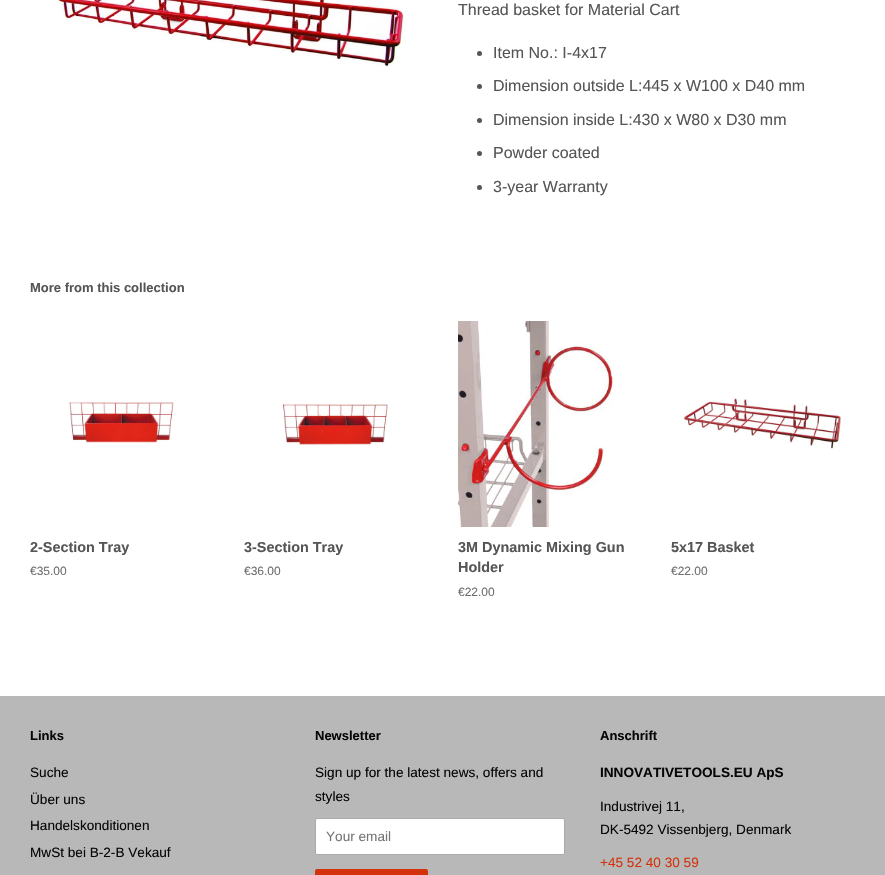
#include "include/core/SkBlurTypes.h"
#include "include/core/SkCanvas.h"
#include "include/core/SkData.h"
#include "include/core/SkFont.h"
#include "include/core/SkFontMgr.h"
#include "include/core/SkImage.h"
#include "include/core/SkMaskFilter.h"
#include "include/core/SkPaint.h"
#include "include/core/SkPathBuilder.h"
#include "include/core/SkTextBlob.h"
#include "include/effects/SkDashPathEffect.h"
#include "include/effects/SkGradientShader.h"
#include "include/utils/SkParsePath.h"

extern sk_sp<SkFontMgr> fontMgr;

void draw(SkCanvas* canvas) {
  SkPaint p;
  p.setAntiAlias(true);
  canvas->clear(SK_ColorWHITE);
  canvas->drawImageRect(SkImages::DeferredFromEncodedData(SkData::MakeFromFileName("images/1.png")), SkRect::MakeLTRB(57, 0, 407, 67), SkSamplingOptions());
  p.setColor(SkColorSetRGB(85, 85, 85));
  canvas->drawCircle(479.5f, 53.5f, 2.5f, p);
  canvas->drawCircle(479.5f, 86.5f, 2.5f, p);
  canvas->drawCircle(479.5f, 120.5f, 2.5f, p);
  canvas->drawCircle(479.5f, 153.5f, 2.5f, p);
  canvas->drawCircle(479.5f, 187.5f, 2.5f, p);
  canvas->drawImageRect(SkImages::DeferredFromEncodedData(SkData::MakeFromFileName("images/2.png")), SkRect::MakeLTRB(68, 402, 174, 443), SkSamplingOptions());
  canvas->drawImageRect(SkImages::DeferredFromEncodedData(SkData::MakeFromFileName("images/3.png")), SkRect::MakeLTRB(282, 404, 388, 445), SkSamplingOptions());
  canvas->drawImageRect(SkImages::DeferredFromEncodedData(SkData::MakeFromFileName("images/4.png")), SkRect::MakeLTRB(458, 321, 614, 527), SkSamplingOptions());
  canvas->drawImageRect(SkImages::DeferredFromEncodedData(SkData::MakeFromFileName("images/5.png")), SkRect::MakeLTRB(684, 398, 841, 449), SkSamplingOptions());
  p.setColor(SkColorSetRGB(184, 184, 184));
  canvas->drawRect(SkRect::MakeLTRB(0, 696, 885, 875), p);
  p.setColor(SK_ColorWHITE);
  canvas->drawRoundRect(SkRect::MakeLTRB(315.5f, 818.5f, 564.5f, 854.5f), 1.5f, 1.5f, p);
  p.setStyle(SkPaint::kStroke_Style);
  p.setStrokeWidth(1);
  p.setColor(SkColorSetRGB(170, 170, 170));
  canvas->drawRoundRect(SkRect::MakeLTRB(315.5f, 818.5f, 564.5f, 854.5f), 1.5f, 1.5f, p);
  p.setStyle(SkPaint::kFill_Style);
  p.setColor(SkColorSetRGB(211, 50, 12));
  canvas->drawRoundRect(SkRect::MakeLTRB(315, 869, 428, 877), 2, 2, p);
  SkFont font1(fontMgr->matchFamilyStyle("Liberation Sans", SkFontStyle::Normal()), 16);
  font1.setSubpixel(true);
  p.setColor(SkColorSetRGB(85, 85, 85));
  canvas->drawString("Thread basket for Material Cart", 458, 15, font1, p);
  canvas->drawString("Item No.: I-4x17", 493, 58, font1, p);
  canvas->drawString("Dimension outside L:445 x W100 x D40 mm", 493, 91, font1, p);
  canvas->drawString("Dimension inside L:430 x W80 x D30 mm", 493, 125, font1, p);
  canvas->drawString("Powder coated", 493, 158, font1, p);
  canvas->drawString("3-year Warranty", 493, 192, font1, p);
  SkFont font2(fontMgr->matchFamilyStyle("Liberation Sans", SkFontStyle::Bold()), 13);
  font2.setSubpixel(true);
  canvas->drawString("More from this collection", 30, 292, font2, p);
  SkFont font3(fontMgr->matchFamilyStyle("Liberation Sans", SkFontStyle::Bold()), 14.4f);
  font3.setSubpixel(true);
  canvas->drawString("2-Section Tray", 30, 552, font3, p);
  SkFont font4(fontMgr->matchFamilyStyle("Liberation Sans", SkFontStyle::Normal()), 12);
  font4.setSubpixel(true);
  p.setColor(SkColorSetRGB(110, 110, 110));
  canvas->drawString("€35.00", 30, 575, font4, p);
  p.setColor(SkColorSetRGB(85, 85, 85));
  canvas->drawString("3-Section Tray", 244, 552, font3, p);
  p.setColor(SkColorSetRGB(110, 110, 110));
  canvas->drawString("€36.00", 244, 575, font4, p);
  p.setColor(SkColorSetRGB(85, 85, 85));
  canvas->drawString("3M Dynamic Mixing Gun", 458, 552, font3, p);
  canvas->drawString("Holder", 458, 572, font3, p);
  p.setColor(SkColorSetRGB(110, 110, 110));
  canvas->drawString("€22.00", 458, 596, font4, p);
  p.setColor(SkColorSetRGB(85, 85, 85));
  canvas->drawString("5x17 Basket", 671, 552, font3, p);
  p.setColor(SkColorSetRGB(110, 110, 110));
  canvas->drawString("€22.00", 671, 575, font4, p);
  p.setColor(SkColorSetRGB(6, 6, 6));
  canvas->drawString("Links", 30, 740, font2, p);
  SkFont font5(fontMgr->matchFamilyStyle("Liberation Sans", SkFontStyle::Normal()), 13.6f);
  font5.setSubpixel(true);
  canvas->drawString("Suche", 30, 777, font5, p);
  canvas->drawString("Über uns", 30, 804, font5, p);
  canvas->drawString("Handelskonditionen", 30, 830, font5, p);
  canvas->drawString("MwSt bei B-2-B Vekauf", 30, 857, font5, p);
  canvas->drawString("Newsletter", 315, 740, font2, p);
  canvas->drawString("Sign up for the latest news, offers and", 315, 777, font5, p);
  canvas->drawString("styles", 315, 801, font5, p);
  p.setColor(SkColorSetRGB(117, 117, 117));
  canvas->drawString("Your email", 326, 841, font5, p);
  p.setColor(SkColorSetRGB(6, 6, 6));
  canvas->drawString("Anschrift", 600, 740, font2, p);
  SkFont font6(fontMgr->matchFamilyStyle("Liberation Sans", SkFontStyle::Bold()), 13.6f);
  font6.setSubpixel(true);
  canvas->drawString("INNOVATIVETOOLS.EU ApS", 600, 777, font6, p);
  canvas->drawString("Industrivej 11,", 600, 811, font5, p);
  canvas->drawString("DK-5492 Vissenbjerg, Denmark", 600, 834, font5, p);
  p.setColor(SkColorSetRGB(211, 50, 12));
  canvas->drawString("+45 52 40 30 59", 600, 867, font5, p);
}
